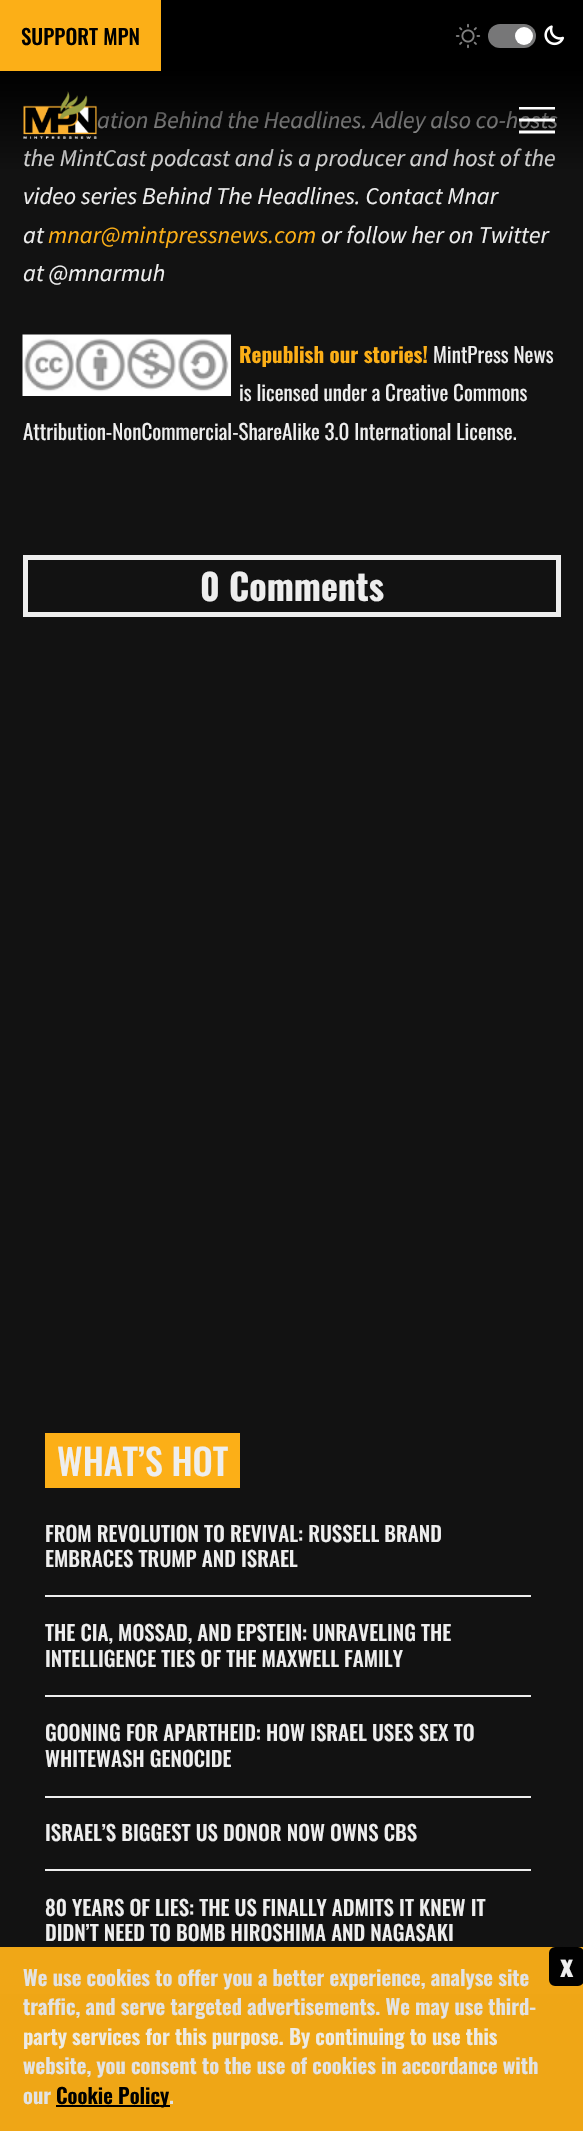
#include "include/core/SkBlurTypes.h"
#include "include/core/SkCanvas.h"
#include "include/core/SkData.h"
#include "include/core/SkFont.h"
#include "include/core/SkFontMgr.h"
#include "include/core/SkImage.h"
#include "include/core/SkMaskFilter.h"
#include "include/core/SkPaint.h"
#include "include/core/SkPathBuilder.h"
#include "include/core/SkTextBlob.h"
#include "include/effects/SkDashPathEffect.h"
#include "include/effects/SkGradientShader.h"
#include "include/utils/SkParsePath.h"

extern sk_sp<SkFontMgr> fontMgr;

void draw(SkCanvas* canvas) {
  SkPaint p;
  p.setAntiAlias(true);
  canvas->clear(SkColorSetRGB(18, 18, 18));
  p.setColor(SkColorSetRGB(240, 167, 23));
  canvas->drawRect(SkRect::MakeLTRB(0, 1947, 583, 1994), p);
  p.setColor(SK_ColorBLACK);
  canvas->drawRect(SkRect::MakeLTRB(161, 0, 583, 71), p);
  canvas->drawImageRect(SkImages::DeferredFromEncodedData(SkData::MakeFromFileName("images/1.png")), SkRect::MakeLTRB(455, 23, 481, 49), SkSamplingOptions());
  p.setColor(SkColorSetRGB(119, 119, 120));
  canvas->drawRoundRect(SkRect::MakeLTRB(488, 24, 536, 48), 12, 12, p);
  p.setColor(SK_ColorWHITE);
  canvas->drawCircle(524, 36, 9, p);
  canvas->drawImageRect(SkImages::DeferredFromEncodedData(SkData::MakeFromFileName("images/2.png")), SkRect::MakeLTRB(544, 25, 565, 46), SkSamplingOptions());
  canvas->drawImageRect(SkImages::DeferredFromEncodedData(SkData::MakeFromFileName("images/4.png")), SkRect::MakeLTRB(22, 334, 231, 396), SkSamplingOptions());
  p.setStyle(SkPaint::kStroke_Style);
  p.setStrokeWidth(5);
  p.setColor(SkColorSetRGB(238, 238, 238));
  canvas->drawRect(SkRect::MakeLTRB(25.5f, 557.5f, 558.5f, 614.5f), p);
  p.setStyle(SkPaint::kFill_Style);
  p.setColor(SkColorSetRGB(252, 175, 23));
  canvas->drawRect(SkRect::MakeLTRB(45, 1433, 240, 1488), p);
  p.setColor(SkColorSetRGB(238, 238, 238));
  canvas->drawRect(SkRect::MakeLTRB(45, 1595, 531, 1597), p);
  canvas->drawRect(SkRect::MakeLTRB(45, 1695, 531, 1697), p);
  canvas->drawRect(SkRect::MakeLTRB(45, 1796, 531, 1798), p);
  canvas->drawRect(SkRect::MakeLTRB(45, 1869, 531, 1871), p);
  p.setColor(SkColorSetRGB(239, 166, 22));
  canvas->drawRect(SkRect::MakeLTRB(0, 1994, 583, 2131), p);
  p.setColor(SK_ColorBLACK);
  canvas->drawRect(SkRect::MakeLTRB(56, 2105, 170, 2107), p);
  p.setColor(SkColorSetRGB(1, 1, 1));
  canvas->drawRoundRect(SkRect::MakeLTRB(550, 1948, 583, 1985), 5, 5, p);
  p.setStyle(SkPaint::kStroke_Style);
  p.setStrokeWidth(2);
  canvas->drawRoundRect(SkRect::MakeLTRB(550, 1948, 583, 1985), 5, 5, p);
  SkFont font1(fontMgr->matchFamilyStyle("Source Sans Pro", SkFontStyle::Italic()), 24);
  font1.setSubpixel(true);
  p.setStyle(SkPaint::kFill_Style);
  p.setColor(SkColorSetRGB(238, 238, 238));
  canvas->drawString("ation Behind the Headlines. Adley also co-hosts", 97, 128, font1, p);
  canvas->drawString("the MintCast podcast and is a producer and host of the", 23, 166, font1, p);
  {
    const SkColor colors[] = {SK_ColorBLACK, SkColorSetARGB(204, 0, 0, 0), SkColorSetARGB(0, 0, 0, 0)};
    const float stops[] = {0, 0.25f, 1};
    const SkPoint ends[] = {{292, 69}, {292, 174}};
    p.setShader(SkGradientShader::MakeLinear(ends, colors, stops, 3, SkTileMode::kClamp));
    p.setAlpha(255);
  }
  canvas->drawRect(SkRect::MakeLTRB(0, 69, 583, 171), p);
  canvas->save();
  canvas->clipRect(SkRect::MakeLTRB(519, 107, 555, 134));
  p.setShader(nullptr);
  p.setColor(SK_ColorWHITE);
  canvas->drawPath(SkPathBuilder().moveTo(555, 133.5f).lineTo(519, 133.5f).lineTo(519, 130.5f).lineTo(555, 130.5f).close().moveTo(555, 121.5f).lineTo(519, 121.5f).lineTo(519, 118.5f).lineTo(555, 118.5f).close().moveTo(555, 109.5f).lineTo(519, 109.5f).lineTo(519, 106.5f).lineTo(555, 106.5f).close().detach(), p);
  canvas->restore();
  p.setColor(SkColorSetRGB(252, 175, 23));
  canvas->drawRect(SkRect::MakeLTRB(0, 0, 161, 71), p);
  SkFont font2(fontMgr->matchFamilyStyle("Oswald", SkFontStyle(500, SkFontStyle::kNormal_Width, SkFontStyle::kUpright_Slant)), 21);
  font2.setSubpixel(true);
  p.setColor(SK_ColorBLACK);
  canvas->drawString("SUPPORT MPN", 21, 45, font2, p);
  canvas->drawImageRect(SkImages::DeferredFromEncodedData(SkData::MakeFromFileName("images/3.png")), SkRect::MakeLTRB(23, 91, 97, 139), SkSamplingOptions());
  p.setColor(SkColorSetRGB(238, 238, 238));
  canvas->drawString("video series Behind The Headlines. Contact Mnar", 23, 204, font1, p);
  canvas->drawString("at", 23, 243, font1, p);
  p.setColor(SkColorSetRGB(252, 175, 23));
  canvas->drawString("mnar@mintpressnews.com", 48, 243, font1, p);
  p.setColor(SkColorSetRGB(238, 238, 238));
  canvas->drawString("or follow her on Twitter", 321, 243, font1, p);
  canvas->drawString("at @mnarmuh", 23, 281, font1, p);
  SkFont font3(fontMgr->matchFamilyStyle("Oswald", SkFontStyle::Bold()), 21);
  font3.setSubpixel(true);
  p.setColor(SkColorSetRGB(252, 175, 23));
  canvas->drawString("Republish our stories!", 239, 363, font3, p);
  SkFont font4(fontMgr->matchFamilyStyle("Oswald", SkFontStyle::Normal()), 21);
  font4.setSubpixel(true);
  p.setColor(SkColorSetRGB(238, 238, 238));
  canvas->drawString("MintPress News", 433, 363, font4, p);
  canvas->drawString("is licensed under a Creative Commons", 239, 401, font4, p);
  canvas->drawString("Attribution-NonCommercial-ShareAlike 3.0 International License.", 23, 440, font4, p);
  SkFont font5(fontMgr->matchFamilyStyle("Oswald", SkFontStyle::Bold()), 36);
  font5.setSubpixel(true);
  canvas->drawString("0 Comments", 200, 601, font5, p);
  SkFont font6(fontMgr->matchFamilyStyle("Oswald", SkFontStyle(500, SkFontStyle::kNormal_Width, SkFontStyle::kUpright_Slant)), 36);
  font6.setSubpixel(true);
  canvas->drawString("WHAT’S HOT", 57, 1476, font6, p);
  canvas->drawString("FROM REVOLUTION TO REVIVAL: RUSSELL BRAND", 45, 1542, font2, p);
  canvas->drawString("EMBRACES TRUMP AND ISRAEL", 45, 1567, font2, p);
  canvas->drawString("THE CIA, MOSSAD, AND EPSTEIN: UNRAVELING THE", 45, 1641, font2, p);
  canvas->drawString("INTELLIGENCE TIES OF THE MAXWELL FAMILY", 45, 1667, font2, p);
  canvas->drawString("GOONING FOR APARTHEID: HOW ISRAEL USES SEX TO", 45, 1741, font2, p);
  canvas->drawString("WHITEWASH GENOCIDE", 45, 1767, font2, p);
  canvas->drawString("ISRAEL’S BIGGEST US DONOR NOW OWNS CBS", 45, 1841, font2, p);
  canvas->drawString("80 YEARS OF LIES: THE US FINALLY ADMITS IT KNEW IT", 45, 1916, font2, p);
  canvas->drawString("DIDN’T NEED TO BOMB HIROSHIMA AND NAGASAKI", 45, 1941, font2, p);
  SkFont font7(fontMgr->matchFamilyStyle("Oswald", SkFontStyle(600, SkFontStyle::kNormal_Width, SkFontStyle::kUpright_Slant)), 21);
  font7.setSubpixel(true);
  p.setColor(SkColorSetRGB(227, 227, 227));
  canvas->drawString("We use cookies to offer you a better experience, analyse site", 23, 1986, font7, p);
  canvas->drawString("traffic, and serve targeted advertisements. We may use third-", 23, 2015, font7, p);
  p.setColor(SkColorSetRGB(238, 235, 227));
  canvas->drawString("party services for this purpose. By continuing to use this", 23, 2045, font7, p);
  p.setColor(SkColorSetRGB(227, 227, 227));
  canvas->drawString("website, you consent to the use of cookies in accordance with", 23, 2074, font7, p);
  canvas->drawString("our", 23, 2104, font7, p);
  p.setColor(SK_ColorBLACK);
  canvas->drawString("Cookie Policy", 56, 2104, font7, p);
  p.setColor(SkColorSetRGB(227, 227, 227));
  canvas->drawString(".", 169, 2104, font7, p);
  SkFont font8(fontMgr->matchFamilyStyle("Oswald", SkFontStyle::Bold()), 30);
  font8.setSubpixel(true);
  p.setColor(SkColorSetRGB(238, 238, 238));
  canvas->drawString("x", 560, 1977, font8, p);
}
